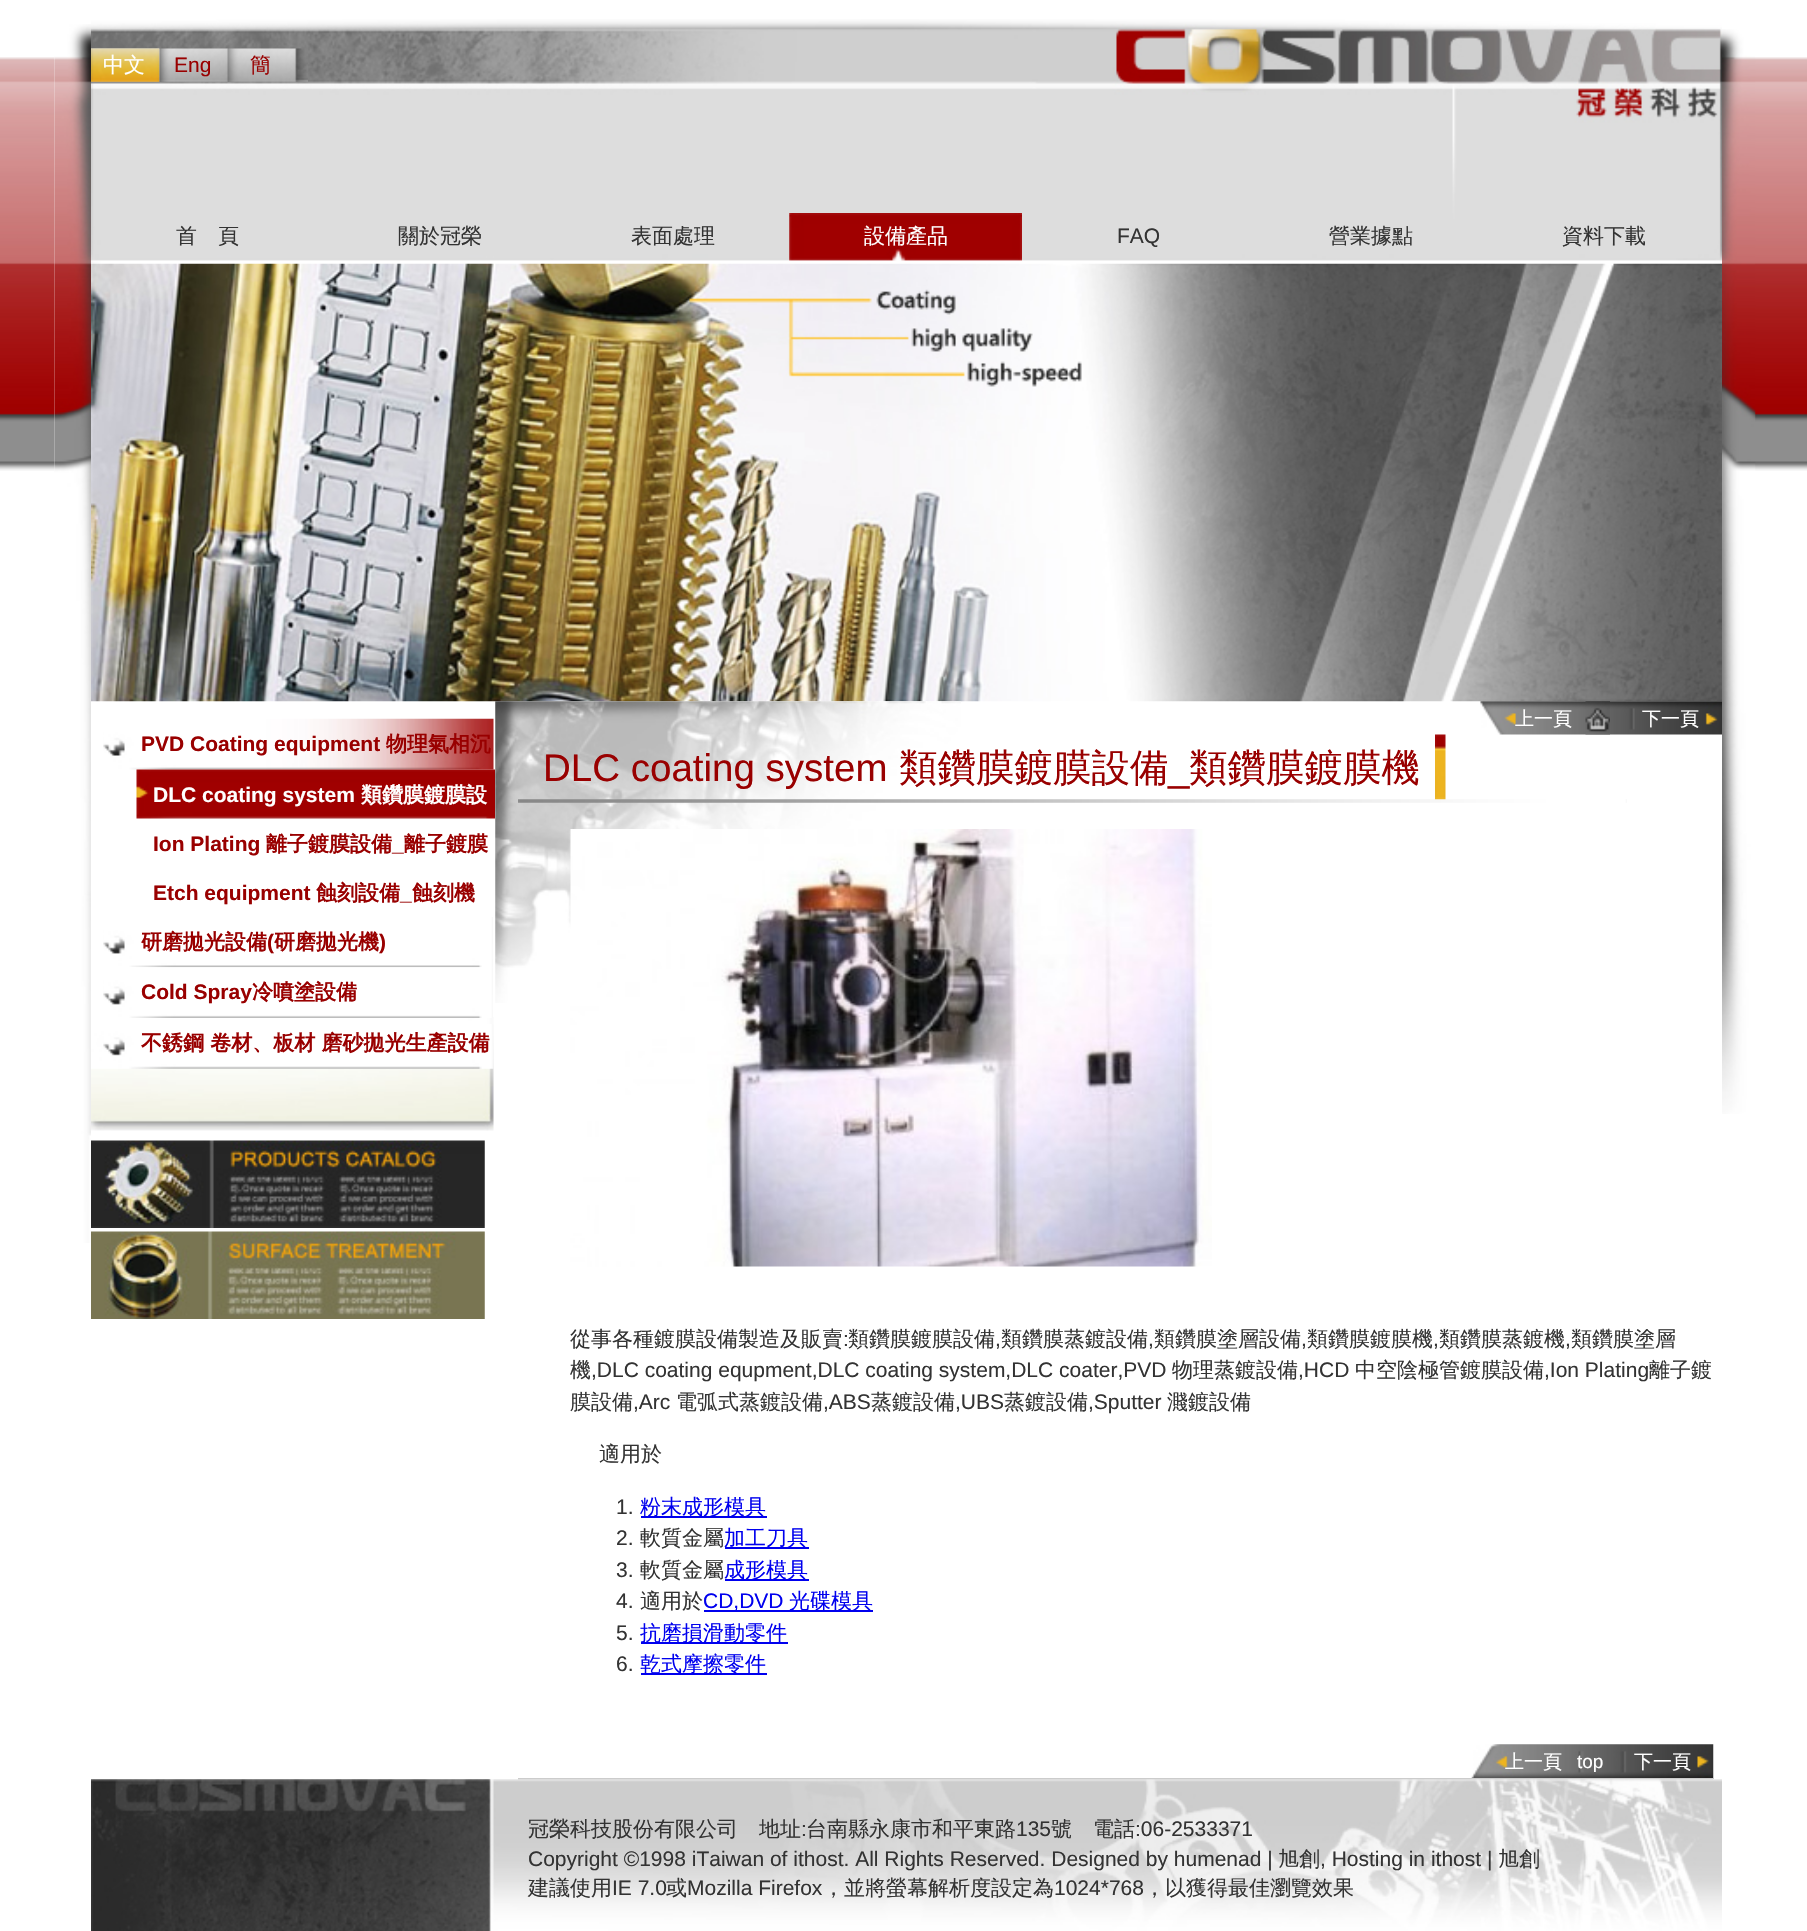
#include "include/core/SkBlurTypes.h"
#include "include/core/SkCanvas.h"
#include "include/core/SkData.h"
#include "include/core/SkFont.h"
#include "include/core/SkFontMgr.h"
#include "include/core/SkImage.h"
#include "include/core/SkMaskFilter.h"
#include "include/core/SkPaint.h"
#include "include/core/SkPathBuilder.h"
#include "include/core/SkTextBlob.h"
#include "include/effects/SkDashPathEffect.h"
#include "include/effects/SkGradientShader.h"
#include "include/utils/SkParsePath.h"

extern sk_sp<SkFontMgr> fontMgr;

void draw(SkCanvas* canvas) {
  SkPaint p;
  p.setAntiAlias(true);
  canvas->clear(SK_ColorWHITE);
  canvas->drawImageRect(SkImages::DeferredFromEncodedData(SkData::MakeFromFileName("images/1.png")), SkRect::MakeLTRB(0, 57, 1807, 471), SkSamplingOptions());
  p.setColor(SK_ColorWHITE);
  canvas->drawRect(SkRect::MakeLTRB(54, 57, 1755, 471), p);
  canvas->drawImageRect(SkImages::DeferredFromEncodedData(SkData::MakeFromFileName("images/2.png")), SkRect::MakeLTRB(54, 24, 91, 1243), SkSamplingOptions());
  canvas->drawImageRect(SkImages::DeferredFromEncodedData(SkData::MakeFromFileName("images/3.png")), SkRect::MakeLTRB(91, 19, 1722, 213), SkSamplingOptions());
  canvas->drawImageRect(SkImages::DeferredFromEncodedData(SkData::MakeFromFileName("images/4.png")), SkRect::MakeLTRB(91, 48, 308, 82), SkSamplingOptions());
  canvas->drawImageRect(SkImages::DeferredFromEncodedData(SkData::MakeFromFileName("images/5.png")), SkRect::MakeLTRB(91, 48, 160, 82), SkSamplingOptions());
  canvas->drawImageRect(SkImages::DeferredFromEncodedData(SkData::MakeFromFileName("images/6.png")), SkRect::MakeLTRB(91, 213, 1722, 264), SkSamplingOptions());
  canvas->drawImageRect(SkImages::DeferredFromEncodedData(SkData::MakeFromFileName("images/7.png")), SkRect::MakeLTRB(789, 213, 1022, 261), SkSamplingOptions());
  canvas->drawImageRect(SkImages::DeferredFromEncodedData(SkData::MakeFromFileName("images/8.png")), SkRect::MakeLTRB(91, 263, 1722, 702), SkSamplingOptions());
  canvas->drawImageRect(SkImages::DeferredFromEncodedData(SkData::MakeFromFileName("images/9.png")), SkRect::MakeLTRB(91, 1017, 494, 1131), SkSamplingOptions());
  canvas->drawImageRect(SkImages::DeferredFromEncodedData(SkData::MakeFromFileName("images/10.png")), SkRect::MakeLTRB(103, 718, 494, 770), SkSamplingOptions());
  canvas->drawImageRect(SkImages::DeferredFromEncodedData(SkData::MakeFromFileName("images/11.png")), SkRect::MakeLTRB(136, 769, 495, 819), SkSamplingOptions());
  canvas->drawImageRect(SkImages::DeferredFromEncodedData(SkData::MakeFromFileName("images/12.png")), SkRect::MakeLTRB(103, 917, 493, 968), SkSamplingOptions());
  canvas->drawImageRect(SkImages::DeferredFromEncodedData(SkData::MakeFromFileName("images/13.png")), SkRect::MakeLTRB(103, 967, 493, 1018), SkSamplingOptions());
  canvas->drawImageRect(SkImages::DeferredFromEncodedData(SkData::MakeFromFileName("images/14.png")), SkRect::MakeLTRB(91, 1024, 494, 1069), SkSamplingOptions());
  canvas->drawImageRect(SkImages::DeferredFromEncodedData(SkData::MakeFromFileName("images/15.png")), SkRect::MakeLTRB(91, 1140, 485, 1228), SkSamplingOptions());
  canvas->drawImageRect(SkImages::DeferredFromEncodedData(SkData::MakeFromFileName("images/16.png")), SkRect::MakeLTRB(91, 1231, 485, 1319), SkSamplingOptions());
  canvas->drawImageRect(SkImages::DeferredFromEncodedData(SkData::MakeFromFileName("images/17.png")), SkRect::MakeLTRB(495, 701, 961, 1003), SkSamplingOptions());
  canvas->drawImageRect(SkImages::DeferredFromEncodedData(SkData::MakeFromFileName("images/18.png")), SkRect::MakeLTRB(1480, 701, 1722, 735), SkSamplingOptions());
  canvas->drawImageRect(SkImages::DeferredFromEncodedData(SkData::MakeFromFileName("images/19.png")), SkRect::MakeLTRB(1585, 701, 1610, 735), SkSamplingOptions());
  canvas->drawImageRect(SkImages::DeferredFromEncodedData(SkData::MakeFromFileName("images/20.png")), SkRect::MakeLTRB(518, 799, 1627, 803), SkSamplingOptions());
  canvas->drawImageRect(SkImages::DeferredFromEncodedData(SkData::MakeFromFileName("images/21.png")), SkRect::MakeLTRB(1435, 734, 1446, 800), SkSamplingOptions());
  canvas->drawImageRect(SkImages::DeferredFromEncodedData(SkData::MakeFromFileName("images/22.png")), SkRect::MakeLTRB(570, 829, 1212, 1267), SkSamplingOptions());
  p.setColor(SkColorSetRGB(0, 0, 238));
  canvas->drawRect(SkRect::MakeLTRB(641, 1516, 767, 1518), p);
  canvas->drawRect(SkRect::MakeLTRB(725, 1547, 809, 1549), p);
  canvas->drawRect(SkRect::MakeLTRB(725, 1579, 809, 1581), p);
  canvas->drawRect(SkRect::MakeLTRB(704, 1610, 873, 1612), p);
  canvas->drawRect(SkRect::MakeLTRB(641, 1642, 788, 1644), p);
  canvas->drawRect(SkRect::MakeLTRB(641, 1673, 767, 1675), p);
  canvas->drawImageRect(SkImages::DeferredFromEncodedData(SkData::MakeFromFileName("images/23.png")), SkRect::MakeLTRB(1471, 1744, 1714, 1780), SkSamplingOptions());
  p.setColor(SkColorSetRGB(204, 204, 204));
  canvas->drawRect(SkRect::MakeLTRB(518, 1778, 1713, 1780), p);
  canvas->drawImageRect(SkImages::DeferredFromEncodedData(SkData::MakeFromFileName("images/24.png")), SkRect::MakeLTRB(91, 1779, 1722, 1931), SkSamplingOptions());
  canvas->drawImageRect(SkImages::DeferredFromEncodedData(SkData::MakeFromFileName("images/25.png")), SkRect::MakeLTRB(1722, 29, 1756, 1114), SkSamplingOptions());
  SkFont font1(fontMgr->matchFamilyStyle("WenQuanYi Zen Hei", SkFontStyle(500, SkFontStyle::kNormal_Width, SkFontStyle::kUpright_Slant)), 21);
  font1.setSubpixel(true);
  p.setColor(SK_ColorWHITE);
  canvas->drawString("中文", 103, 72, font1, p);
  SkFont font2(fontMgr->matchFamilyStyle("Liberation Sans", SkFontStyle::Normal()), 21);
  font2.setSubpixel(true);
  p.setColor(SkColorSetRGB(153, 0, 0));
  canvas->drawString("Eng", 174, 72, font2, p);
  canvas->drawString("簡", 250, 72, font1, p);
  p.setColor(SkColorSetRGB(51, 51, 51));
  canvas->drawString("首　頁", 176, 243, font1, p);
  canvas->drawString("關於冠榮", 398, 243, font1, p);
  canvas->drawString("表面處理", 631, 243, font1, p);
  p.setColor(SK_ColorWHITE);
  canvas->drawString("設備產品", 864, 243, font1, p);
  p.setColor(SkColorSetRGB(51, 51, 51));
  canvas->drawString("FAQ", 1117, 243, font2, p);
  canvas->drawString("營業據點", 1329, 243, font1, p);
  canvas->drawString("資料下載", 1562, 243, font1, p);
  SkFont font3(fontMgr->matchFamilyStyle("Liberation Sans", SkFontStyle::Bold()), 21);
  font3.setSubpixel(true);
  p.setColor(SkColorSetRGB(153, 0, 0));
  canvas->drawString("PVD Coating equipment", 141, 751, font3, p);
  SkFont font4(fontMgr->matchFamilyStyle("WenQuanYi Zen Hei", SkFontStyle::Bold()), 21);
  font4.setSubpixel(true);
  canvas->drawString("物理氣相沉", 386, 751, font4, p);
  p.setColor(SK_ColorWHITE);
  canvas->drawString("DLC coating system", 153, 802, font3, p);
  canvas->drawString("類鑽膜鍍膜設", 361, 802, font4, p);
  p.setColor(SkColorSetRGB(153, 0, 0));
  canvas->drawString("Ion Plating", 153, 851, font3, p);
  canvas->drawString("離子鍍膜設備", 266, 851, font4, p);
  canvas->drawString("_", 392, 851, font3, p);
  canvas->drawString("離子鍍膜", 404, 851, font4, p);
  canvas->drawString("Etch equipment", 153, 900, font3, p);
  canvas->drawString("蝕刻設備", 316, 900, font4, p);
  canvas->drawString("_", 400, 900, font3, p);
  canvas->drawString("蝕刻機", 412, 900, font4, p);
  canvas->drawString("研磨拋光設備", 141, 949, font4, p);
  canvas->drawString("(", 267, 949, font3, p);
  canvas->drawString("研磨拋光機", 274, 949, font4, p);
  canvas->drawString(")", 379, 949, font3, p);
  canvas->drawString("Cold Spray", 141, 999, font3, p);
  canvas->drawString("冷噴塗設備", 252, 999, font4, p);
  canvas->drawString("不銹鋼 卷材、板材 磨砂拋光生產設備", 141, 1050, font4, p);
  SkFont font5(fontMgr->matchFamilyStyle("WenQuanYi Zen Hei", SkFontStyle(500, SkFontStyle::kNormal_Width, SkFontStyle::kUpright_Slant)), 19);
  font5.setSubpixel(true);
  p.setColor(SK_ColorWHITE);
  canvas->drawString("上一頁", 1515, 725, font5, p);
  canvas->drawString("下一頁", 1642, 725, font5, p);
  SkFont font6(fontMgr->matchFamilyStyle("Liberation Sans", SkFontStyle::Normal()), 38.5f);
  font6.setSubpixel(true);
  p.setColor(SkColorSetRGB(153, 0, 0));
  canvas->drawString("DLC coating system", 543, 781, font6, p);
  SkFont font7(fontMgr->matchFamilyStyle("WenQuanYi Zen Hei", SkFontStyle(500, SkFontStyle::kNormal_Width, SkFontStyle::kUpright_Slant)), 38.5f);
  font7.setSubpixel(true);
  canvas->drawString("類鑽膜鍍膜設備", 899, 781, font7, p);
  canvas->drawString("_", 1168, 781, font6, p);
  canvas->drawString("類鑽膜鍍膜機", 1189, 781, font7, p);
  p.setColor(SkColorSetRGB(51, 51, 51));
  canvas->drawString("從事各種鍍膜設備製造及販賣", 570, 1346, font1, p);
  canvas->drawString(":", 843, 1346, font2, p);
  canvas->drawString("類鑽膜鍍膜設備", 848, 1346, font1, p);
  canvas->drawString(",", 995, 1346, font2, p);
  canvas->drawString("類鑽膜蒸鍍設備", 1001, 1346, font1, p);
  canvas->drawString(",", 1148, 1346, font2, p);
  canvas->drawString("類鑽膜塗層設備", 1154, 1346, font1, p);
  canvas->drawString(",", 1301, 1346, font2, p);
  canvas->drawString("類鑽膜鍍膜機", 1307, 1346, font1, p);
  canvas->drawString(",", 1433, 1346, font2, p);
  canvas->drawString("類鑽膜蒸鍍機", 1439, 1346, font1, p);
  canvas->drawString(",", 1565, 1346, font2, p);
  canvas->drawString("類鑽膜塗層", 1571, 1346, font1, p);
  canvas->drawString("機", 570, 1377, font1, p);
  canvas->drawString(",DLC coating equpment,DLC coating system,DLC coater,PVD", 591, 1377, font2, p);
  canvas->drawString("物理蒸鍍設備", 1172, 1377, font1, p);
  canvas->drawString(",HCD", 1298, 1377, font2, p);
  canvas->drawString("中空陰極管鍍膜設備", 1355, 1377, font1, p);
  canvas->drawString(",Ion Plating", 1544, 1377, font2, p);
  canvas->drawString("離子鍍", 1649, 1377, font1, p);
  canvas->drawString("膜設備", 570, 1409, font1, p);
  canvas->drawString(",Arc", 633, 1409, font2, p);
  canvas->drawString("電弧式蒸鍍設備", 676, 1409, font1, p);
  canvas->drawString(",ABS", 823, 1409, font2, p);
  canvas->drawString("蒸鍍設備", 871, 1409, font1, p);
  canvas->drawString(",UBS", 955, 1409, font2, p);
  canvas->drawString("蒸鍍設備", 1004, 1409, font1, p);
  canvas->drawString(",Sputter", 1088, 1409, font2, p);
  canvas->drawString("濺鍍設備", 1167, 1409, font1, p);
  canvas->drawString("適用於", 599, 1461, font1, p);
  canvas->drawString("1.", 616, 1514, font2, p);
  p.setColor(SkColorSetRGB(0, 0, 238));
  canvas->drawString("粉末成形模具", 640, 1514, font1, p);
  p.setColor(SkColorSetRGB(51, 51, 51));
  canvas->drawString("2.", 616, 1545, font2, p);
  canvas->drawString("軟質金屬", 640, 1545, font1, p);
  p.setColor(SkColorSetRGB(0, 0, 238));
  canvas->drawString("加工刀具", 724, 1545, font1, p);
  p.setColor(SkColorSetRGB(51, 51, 51));
  canvas->drawString("3.", 616, 1577, font2, p);
  canvas->drawString("軟質金屬", 640, 1577, font1, p);
  p.setColor(SkColorSetRGB(0, 0, 238));
  canvas->drawString("成形模具", 724, 1577, font1, p);
  p.setColor(SkColorSetRGB(51, 51, 51));
  canvas->drawString("4.", 616, 1608, font2, p);
  canvas->drawString("適用於", 640, 1608, font1, p);
  p.setColor(SkColorSetRGB(0, 0, 238));
  canvas->drawString("CD,DVD", 703, 1608, font2, p);
  canvas->drawString("光碟模具", 789, 1608, font1, p);
  p.setColor(SkColorSetRGB(51, 51, 51));
  canvas->drawString("5.", 616, 1640, font2, p);
  p.setColor(SkColorSetRGB(0, 0, 238));
  canvas->drawString("抗磨損滑動零件", 640, 1640, font1, p);
  p.setColor(SkColorSetRGB(51, 51, 51));
  canvas->drawString("6.", 616, 1671, font2, p);
  p.setColor(SkColorSetRGB(0, 0, 238));
  canvas->drawString("乾式摩擦零件", 640, 1671, font1, p);
  p.setColor(SK_ColorWHITE);
  canvas->drawString("上一頁", 1505, 1768, font5, p);
  SkFont font8(fontMgr->matchFamilyStyle("Liberation Sans", SkFontStyle::Normal()), 19);
  font8.setSubpixel(true);
  canvas->drawString("top", 1577, 1768, font8, p);
  canvas->drawString("下一頁", 1634, 1768, font5, p);
  p.setColor(SkColorSetRGB(51, 51, 51));
  canvas->drawString("冠榮科技股份有限公司　地址", 528, 1836, font1, p);
  canvas->drawString(":", 801, 1836, font2, p);
  canvas->drawString("台南縣永康市和平東路", 806, 1836, font1, p);
  canvas->drawString("135", 1016, 1836, font2, p);
  canvas->drawString("號　電話", 1051, 1836, font1, p);
  canvas->drawString(":06-2533371", 1135, 1836, font2, p);
  canvas->drawString("Copyright ©1998 iTaiwan of ithost. All Rights Reserved. Designed by humenad |", 528, 1866, font2, p);
  canvas->drawString("旭創", 1278, 1866, font1, p);
  canvas->drawString(", Hosting in ithost |", 1320, 1866, font2, p);
  canvas->drawString("旭創", 1498, 1866, font1, p);
  canvas->drawString("建議使用", 528, 1895, font1, p);
  canvas->drawString("IE 7.0", 612, 1895, font2, p);
  canvas->drawString("或", 666, 1895, font1, p);
  canvas->drawString("Mozilla Firefox", 687, 1895, font2, p);
  canvas->drawString("，並將螢幕解析度設定為", 823, 1895, font1, p);
  canvas->drawString("1024*768", 1054, 1895, font2, p);
  canvas->drawString("，以獲得最佳瀏覽效果", 1144, 1895, font1, p);
}
